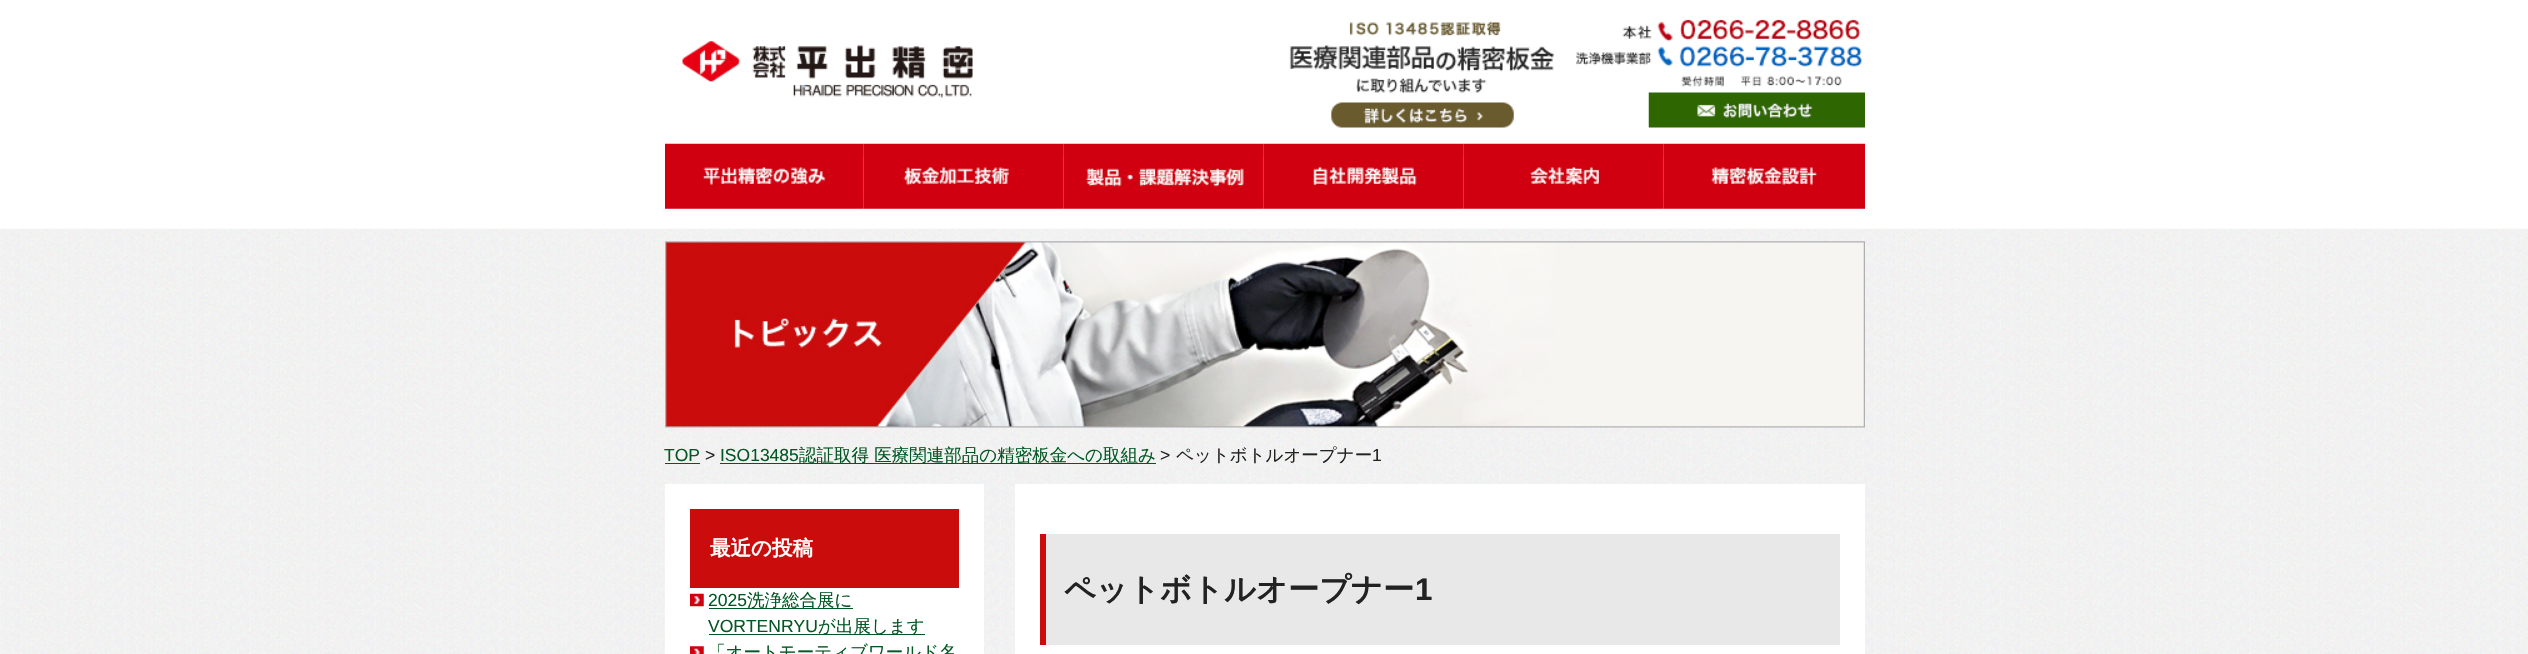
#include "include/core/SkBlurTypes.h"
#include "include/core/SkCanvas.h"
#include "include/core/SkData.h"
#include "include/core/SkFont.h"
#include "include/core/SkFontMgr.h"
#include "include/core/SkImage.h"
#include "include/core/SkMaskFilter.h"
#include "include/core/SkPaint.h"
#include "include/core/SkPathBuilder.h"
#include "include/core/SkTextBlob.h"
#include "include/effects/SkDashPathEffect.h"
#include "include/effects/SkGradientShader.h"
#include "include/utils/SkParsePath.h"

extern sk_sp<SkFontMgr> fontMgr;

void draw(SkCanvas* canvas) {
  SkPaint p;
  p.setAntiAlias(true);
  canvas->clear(SK_ColorWHITE);
  canvas->drawImageRect(SkImages::DeferredFromEncodedData(SkData::MakeFromFileName("images/1.png")), SkRect::MakeLTRB(682, 41, 973, 98), SkSamplingOptions());
  canvas->drawImageRect(SkImages::DeferredFromEncodedData(SkData::MakeFromFileName("images/2.png")), SkRect::MakeLTRB(1289, 21, 1554, 128), SkSamplingOptions());
  canvas->drawImageRect(SkImages::DeferredFromEncodedData(SkData::MakeFromFileName("images/3.png")), SkRect::MakeLTRB(1576, 19, 1865, 128), SkSamplingOptions());
  canvas->drawImageRect(SkImages::DeferredFromEncodedData(SkData::MakeFromFileName("images/4.png")), SkRect::MakeLTRB(665, 143, 864, 209), SkSamplingOptions());
  canvas->drawImageRect(SkImages::DeferredFromEncodedData(SkData::MakeFromFileName("images/5.png")), SkRect::MakeLTRB(863, 143, 1064, 209), SkSamplingOptions());
  canvas->drawImageRect(SkImages::DeferredFromEncodedData(SkData::MakeFromFileName("images/6.png")), SkRect::MakeLTRB(1063, 143, 1264, 209), SkSamplingOptions());
  canvas->drawImageRect(SkImages::DeferredFromEncodedData(SkData::MakeFromFileName("images/7.png")), SkRect::MakeLTRB(1263, 143, 1464, 209), SkSamplingOptions());
  canvas->drawImageRect(SkImages::DeferredFromEncodedData(SkData::MakeFromFileName("images/8.png")), SkRect::MakeLTRB(1463, 143, 1664, 209), SkSamplingOptions());
  canvas->drawImageRect(SkImages::DeferredFromEncodedData(SkData::MakeFromFileName("images/9.png")), SkRect::MakeLTRB(1663, 143, 1865, 209), SkSamplingOptions());
  canvas->drawImageRect(SkImages::DeferredFromEncodedData(SkData::MakeFromFileName("images/10.png")), SkRect::MakeLTRB(0, 228, 2528, 654), SkSamplingOptions());
  canvas->drawImageRect(SkImages::DeferredFromEncodedData(SkData::MakeFromFileName("images/11.png")), SkRect::MakeLTRB(665, 241, 1865, 428), SkSamplingOptions());
  p.setColor(SkColorSetRGB(3, 87, 36));
  canvas->drawRect(SkRect::MakeLTRB(665, 463, 700, 464), p);
  canvas->drawRect(SkRect::MakeLTRB(720, 463, 1156, 464), p);
  p.setColor(SK_ColorWHITE);
  canvas->drawRect(SkRect::MakeLTRB(665, 484, 984, 654), p);
  p.setColor(SkColorSetRGB(202, 12, 12));
  canvas->drawRect(SkRect::MakeLTRB(690, 509, 959, 588), p);
  canvas->drawImageRect(SkImages::DeferredFromEncodedData(SkData::MakeFromFileName("images/12.png")), SkRect::MakeLTRB(690, 593, 704, 607), SkSamplingOptions());
  p.setColor(SkColorSetRGB(3, 87, 36));
  canvas->drawRect(SkRect::MakeLTRB(709, 608, 853, 609), p);
  canvas->drawRect(SkRect::MakeLTRB(709, 634, 925, 635), p);
  canvas->drawImageRect(SkImages::DeferredFromEncodedData(SkData::MakeFromFileName("images/13.png")), SkRect::MakeLTRB(690, 646, 704, 654), SkSamplingOptions());
  p.setColor(SK_ColorWHITE);
  canvas->drawRect(SkRect::MakeLTRB(1015, 484, 1865, 654), p);
  p.setColor(SkColorSetRGB(232, 232, 232));
  canvas->drawRect(SkRect::MakeLTRB(1046, 534, 1840, 645), p);
  p.setColor(SkColorSetRGB(202, 12, 12));
  canvas->drawRect(SkRect::MakeLTRB(1040, 534, 1046, 645), p);
  SkFont font1(fontMgr->matchFamilyStyle("Liberation Sans", SkFontStyle::Normal()), 17.5f);
  font1.setSubpixel(true);
  p.setColor(SkColorSetRGB(3, 87, 36));
  canvas->drawString("TOP", 664, 461, font1, p);
  p.setColor(SkColorSetRGB(34, 34, 34));
  canvas->drawString(">", 705, 461, font1, p);
  p.setColor(SkColorSetRGB(3, 87, 36));
  canvas->drawString("ISO13485", 720, 461, font1, p);
  SkFont font2(fontMgr->matchFamilyStyle("WenQuanYi Zen Hei", SkFontStyle(500, SkFontStyle::kNormal_Width, SkFontStyle::kUpright_Slant)), 17.5f);
  font2.setSubpixel(true);
  canvas->drawString("認証取得 医療関連部品の精密板金への取組み", 799, 461, font2, p);
  p.setColor(SkColorSetRGB(34, 34, 34));
  canvas->drawString(">", 1160, 461, font1, p);
  canvas->drawString("ペットボトルオープナー", 1176, 461, font2, p);
  canvas->drawString("1", 1372, 461, font1, p);
  SkFont font3(fontMgr->matchFamilyStyle("WenQuanYi Zen Hei", SkFontStyle::Bold()), 20.5f);
  font3.setSubpixel(true);
  p.setColor(SK_ColorWHITE);
  canvas->drawString("最近の投稿", 710, 555, font3, p);
  p.setColor(SkColorSetRGB(3, 87, 36));
  canvas->drawString("2025", 708, 606, font1, p);
  canvas->drawString("洗浄総合展に", 747, 606, font2, p);
  canvas->drawString("VORTENRYU", 708, 632, font1, p);
  canvas->drawString("が出展します", 818, 632, font2, p);
  canvas->drawString("「オートモーティブワールド名", 708, 658, font2, p);
  SkFont font4(fontMgr->matchFamilyStyle("WenQuanYi Zen Hei", SkFontStyle::Bold()), 31.25f);
  font4.setSubpixel(true);
  p.setColor(SkColorSetRGB(34, 34, 34));
  canvas->drawString("ペットボトルオープナー", 1064, 600, font4, p);
  SkFont font5(fontMgr->matchFamilyStyle("Liberation Sans", SkFontStyle::Bold()), 31.25f);
  font5.setSubpixel(true);
  canvas->drawString("1", 1415, 600, font5, p);
}
